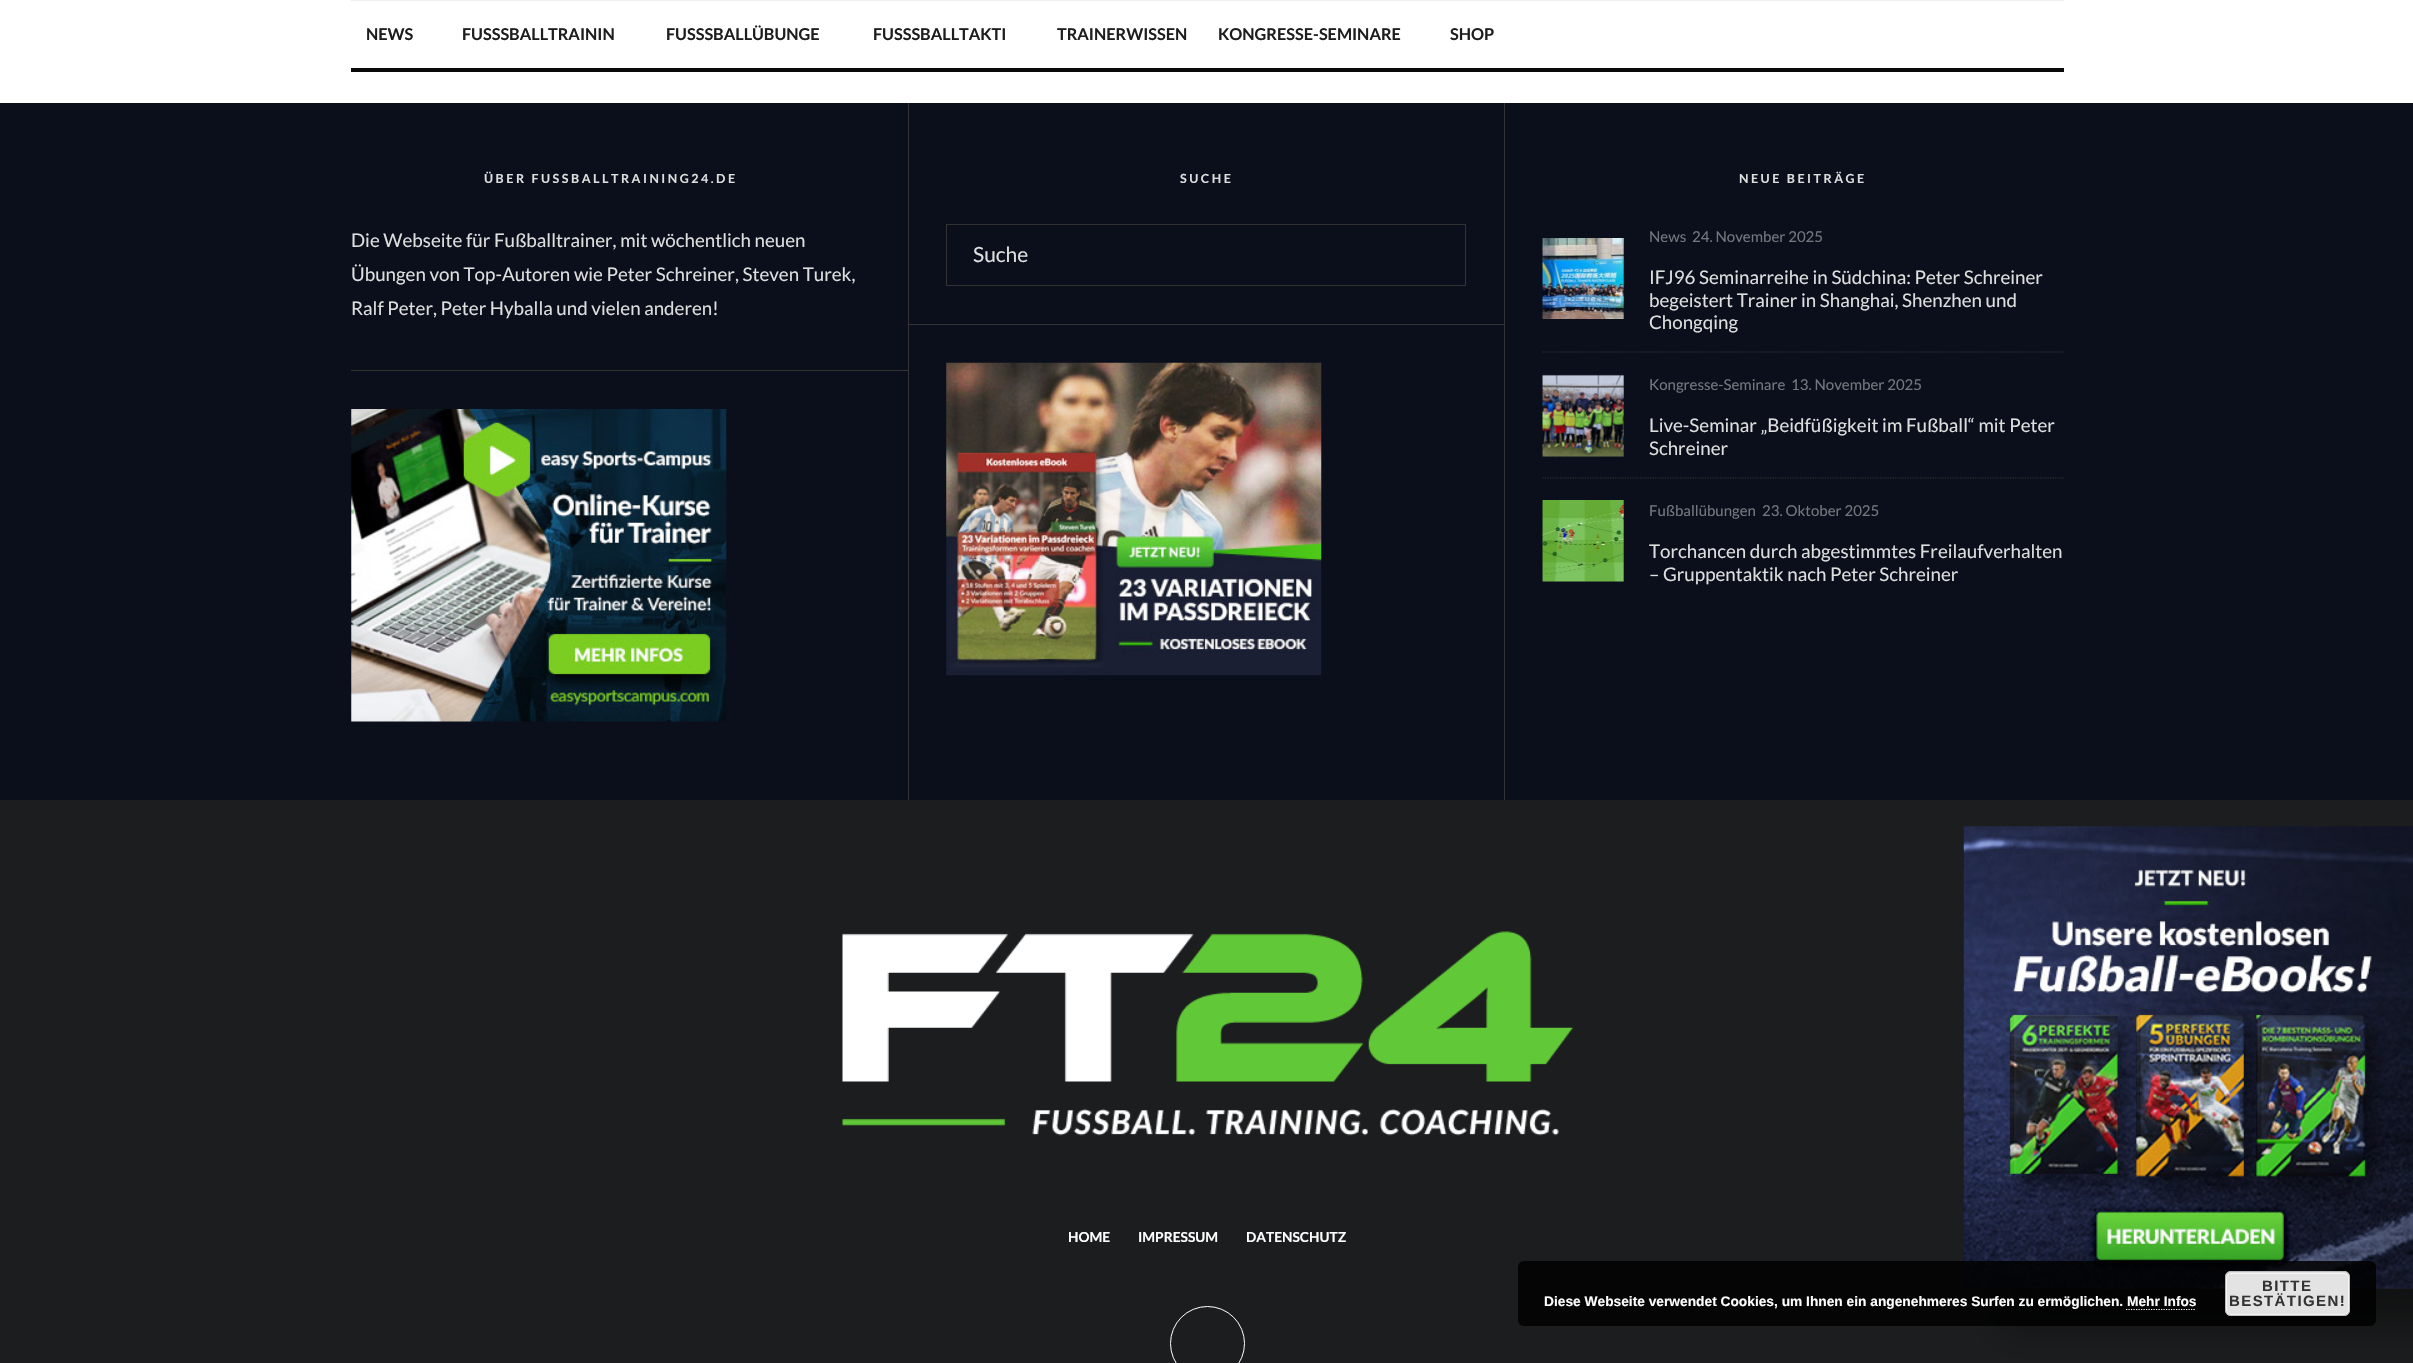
#include "include/core/SkBlurTypes.h"
#include "include/core/SkCanvas.h"
#include "include/core/SkData.h"
#include "include/core/SkFont.h"
#include "include/core/SkFontMgr.h"
#include "include/core/SkImage.h"
#include "include/core/SkMaskFilter.h"
#include "include/core/SkPaint.h"
#include "include/core/SkPathBuilder.h"
#include "include/core/SkTextBlob.h"
#include "include/effects/SkDashPathEffect.h"
#include "include/effects/SkGradientShader.h"
#include "include/utils/SkParsePath.h"

extern sk_sp<SkFontMgr> fontMgr;

void draw(SkCanvas* canvas) {
  SkPaint p;
  p.setAntiAlias(true);
  auto spacedText = [&](const char* s, float x, float y, const SkFont& font, const SkPaint& ink, float letter, float word) {
    std::vector<SkGlyphID> glyphs(font.countText(s, strlen(s), SkTextEncoding::kUTF8));
    std::vector<float> xs(glyphs.size());
    font.textToGlyphs(s, strlen(s), SkTextEncoding::kUTF8, glyphs);
    font.getXPos(glyphs, xs, x);
    float extra = 0;
    for (size_t i = 0; i < glyphs.size(); i++) {
      xs[i] += extra;
      extra += letter + word * (glyphs[i] == font.unicharToGlyph(' '));
    }
    canvas->drawTextBlob(SkTextBlob::MakeFromPosHGlyphs(glyphs, xs, y, font), 0, 0, ink);
  };
  canvas->clear(SK_ColorWHITE);
  p.setColor(SkColorSetRGB(238, 238, 238));
  canvas->drawRect(SkRect::MakeLTRB(351, 0, 2064, 1), p);
  p.setColor(SkColorSetRGB(10, 10, 10));
  canvas->drawRect(SkRect::MakeLTRB(351, 68, 2064, 72), p);
  p.setColor(SkColorSetRGB(11, 15, 27));
  canvas->drawRect(SkRect::MakeLTRB(0, 103, 2413, 800), p);
  p.setColor(SkColorSetRGB(51, 51, 51));
  canvas->drawRect(SkRect::MakeLTRB(908, 103, 909, 800), p);
  canvas->drawRect(SkRect::MakeLTRB(351, 370, 908, 371), p);
  canvas->drawImageRect(SkImages::DeferredFromEncodedData(SkData::MakeFromFileName("images/1.png")), SkRect::MakeLTRB(351, 409, 727, 722), SkSamplingOptions());
  canvas->drawRect(SkRect::MakeLTRB(1504, 103, 1505, 800), p);
  canvas->drawRect(SkRect::MakeLTRB(909, 324, 1504, 325), p);
  p.setStyle(SkPaint::kStroke_Style);
  p.setStrokeWidth(1);
  canvas->drawRect(SkRect::MakeLTRB(946.5f, 224.5f, 1465.5f, 285.5f), p);
  canvas->drawImageRect(SkImages::DeferredFromEncodedData(SkData::MakeFromFileName("images/2.png")), SkRect::MakeLTRB(946, 362, 1322, 676), SkSamplingOptions());
  p.setStrokeWidth(1.2f);
  p.setPathEffect(SkDashPathEffect::Make({{1.25f, 1.25f}}, 0));
  canvas->drawPath(SkPathBuilder().moveTo(1542.5f, 352).lineTo(2064, 352).detach(), p);
  p.setPathEffect(nullptr);
  canvas->drawImageRect(SkImages::DeferredFromEncodedData(SkData::MakeFromFileName("images/3.png")), SkRect::MakeLTRB(1542, 238, 1624, 319), SkSamplingOptions());
  p.setPathEffect(SkDashPathEffect::Make({{1.25f, 1.25f}}, 0));
  canvas->drawPath(SkPathBuilder().moveTo(1542.5f, 478).lineTo(2064, 478).detach(), p);
  p.setPathEffect(nullptr);
  canvas->drawImageRect(SkImages::DeferredFromEncodedData(SkData::MakeFromFileName("images/4.png")), SkRect::MakeLTRB(1542, 374, 1624, 457), SkSamplingOptions());
  canvas->drawImageRect(SkImages::DeferredFromEncodedData(SkData::MakeFromFileName("images/5.png")), SkRect::MakeLTRB(1542, 500, 1624, 582), SkSamplingOptions());
  p.setStyle(SkPaint::kFill_Style);
  p.setColor(SkColorSetRGB(28, 29, 30));
  canvas->drawRect(SkRect::MakeLTRB(0, 800, 2413, 1363), p);
  canvas->drawImageRect(SkImages::DeferredFromEncodedData(SkData::MakeFromFileName("images/6.png")), SkRect::MakeLTRB(842, 931, 1573, 1136), SkSamplingOptions());
  p.setStyle(SkPaint::kStroke_Style);
  p.setStrokeWidth(1);
  p.setColor(SK_ColorWHITE);
  canvas->drawCircle(1207.5f, 1343.5f, 37, p);
  p.setStyle(SkPaint::kFill_Style);
  p.setColor(SkColorSetARGB(102, 0, 0, 0));
  p.setMaskFilter(SkMaskFilter::MakeBlur(kNormal_SkBlurStyle, 19));
  canvas->drawRect(SkRect::MakeLTRB(2001, 864, 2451, 1326), p);
  p.setMaskFilter(nullptr);
  canvas->drawImageRect(SkImages::DeferredFromEncodedData(SkData::MakeFromFileName("images/7.png")), SkRect::MakeLTRB(1963, 826, 2413, 1289), SkSamplingOptions());
  p.setColor(SkColorSetARGB(217, 0, 0, 0));
  canvas->drawRoundRect(SkRect::MakeLTRB(1518, 1261, 2376, 1326), 6, 6, p);
  p.setColor(SkColorSetRGB(227, 227, 227));
  canvas->drawRoundRect(SkRect::MakeLTRB(2225, 1271, 2350, 1316), 6, 6, p);
  p.setStyle(SkPaint::kStroke_Style);
  p.setColor(SkColorSetRGB(246, 246, 246));
  canvas->drawRoundRect(SkRect::MakeLTRB(2226.5f, 1273.5f, 2348.5f, 1314.5f), 4.5f, 4.5f, p);
  p.setColor(SkColorSetRGB(187, 187, 187));
  canvas->drawRoundRect(SkRect::MakeLTRB(2225.5f, 1271.5f, 2349.5f, 1315.5f), 5.5f, 5.5f, p);
  p.setStrokeWidth(1.2f);
  p.setColor(SK_ColorWHITE);
  p.setPathEffect(SkDashPathEffect::Make({{1.25f, 1.25f}}, 0));
  canvas->drawPath(SkPathBuilder().moveTo(2126, 1309.5f).lineTo(2196, 1309.5f).detach(), p);
  p.setPathEffect(nullptr);
  SkFont font1(fontMgr->matchFamilyStyle("Lato", SkFontStyle::Bold()), 16.25f);
  font1.setSubpixel(true);
  p.setStyle(SkPaint::kFill_Style);
  p.setColor(SkColorSetRGB(30, 30, 30));
  canvas->drawString("NEWS", 366, 40, font1, p);
  canvas->drawString("FUSSSBALLTRAININ", 462, 40, font1, p);
  canvas->drawString("FUSSSBALLÜBUNGE", 666, 40, font1, p);
  canvas->drawString("FUSSSBALLTAKTI", 873, 40, font1, p);
  canvas->drawString("TRAINERWISSEN", 1057, 40, font1, p);
  canvas->drawString("KONGRESSE-SEMINARE", 1218, 40, font1, p);
  canvas->drawString("SHOP", 1450, 40, font1, p);
  SkFont font2(fontMgr->matchFamilyStyle("Lato", SkFontStyle::Bold()), 12.5f);
  font2.setSubpixel(true);
  p.setColor(SkColorSetRGB(221, 222, 222));
  spacedText("ÜBER FUSSBALLTRAINING24.DE", 484, 183, font2, p, 2.5f, 0);
  SkFont font3(fontMgr->matchFamilyStyle("Lato", SkFontStyle::Normal()), 18.75f);
  font3.setSubpixel(true);
  canvas->drawString("Die Webseite für Fußballtrainer, mit wöchentlich neuen", 351, 247, font3, p);
  canvas->drawString("Übungen von Top-Autoren wie Peter Schreiner, Steven Turek,", 351, 281, font3, p);
  canvas->drawString("Ralf Peter, Peter Hyballa und vielen anderen!", 351, 315, font3, p);
  spacedText("SUCHE", 1180, 183, font2, p, 2.5f, 0);
  SkFont font4(fontMgr->matchFamilyStyle("Lato", SkFontStyle::Normal()), 21);
  font4.setSubpixel(true);
  canvas->drawString("Suche", 973, 262, font4, p);
  spacedText("NEUE BEITRÄGE", 1739, 183, font2, p, 2.5f, 0);
  SkFont font5(fontMgr->matchFamilyStyle("Lato", SkFontStyle::Normal()), 15);
  font5.setSubpixel(true);
  p.setColor(SkColorSetRGB(116, 119, 125));
  canvas->drawString("News", 1649, 242, font5, p);
  canvas->drawString("24. November 2025", 1692, 242, font5, p);
  p.setColor(SkColorSetRGB(221, 222, 222));
  canvas->drawString("IFJ96 Seminarreihe in Südchina: Peter Schreiner", 1649, 284, font3, p);
  canvas->drawString("begeistert Trainer in Shanghai, Shenzhen und", 1649, 307, font3, p);
  canvas->drawString("Chongqing", 1649, 329, font3, p);
  p.setColor(SkColorSetRGB(116, 119, 125));
  canvas->drawString("Kongresse-Seminare", 1649, 390, font5, p);
  canvas->drawString("13. November 2025", 1791, 390, font5, p);
  p.setColor(SkColorSetRGB(221, 222, 222));
  canvas->drawString("Live-Seminar „Beidfüßigkeit im Fußball“ mit Peter", 1649, 432, font3, p);
  canvas->drawString("Schreiner", 1649, 455, font3, p);
  p.setColor(SkColorSetRGB(116, 119, 125));
  canvas->drawString("Fußballübungen", 1649, 516, font5, p);
  canvas->drawString("23. Oktober 2025", 1762, 516, font5, p);
  p.setColor(SkColorSetRGB(221, 222, 222));
  canvas->drawString("Torchancen durch abgestimmtes Freilaufverhalten", 1649, 558, font3, p);
  canvas->drawString("– Gruppentaktik nach Peter Schreiner", 1649, 581, font3, p);
  SkFont font6(fontMgr->matchFamilyStyle("Lato", SkFontStyle::Bold()), 13.75f);
  font6.setSubpixel(true);
  p.setColor(SK_ColorWHITE);
  canvas->drawString("HOME", 1068, 1242, font6, p);
  canvas->drawString("IMPRESSUM", 1138, 1242, font6, p);
  canvas->drawString("DATENSCHUTZ", 1246, 1242, font6, p);
  SkFont font7(fontMgr->matchFamilyStyle("Liberation Sans", SkFontStyle::Bold()), 13.75f);
  font7.setSubpixel(true);
  canvas->drawString("Diese Webseite verwendet Cookies, um Ihnen ein angenehmeres Surfen zu ermöglichen. Mehr Infos", 1544, 1306, font7, p);
  SkFont font8(fontMgr->matchFamilyStyle("Liberation Sans", SkFontStyle::Bold()), 15);
  font8.setSubpixel(true);
  p.setColor(SkColorSetRGB(51, 51, 51));
  spacedText("BITTE", 2262, 1291, font8, p, 1.4f, 0);
  spacedText("BESTÄTIGEN!", 2229, 1306, font8, p, 1.4f, 0);
}
